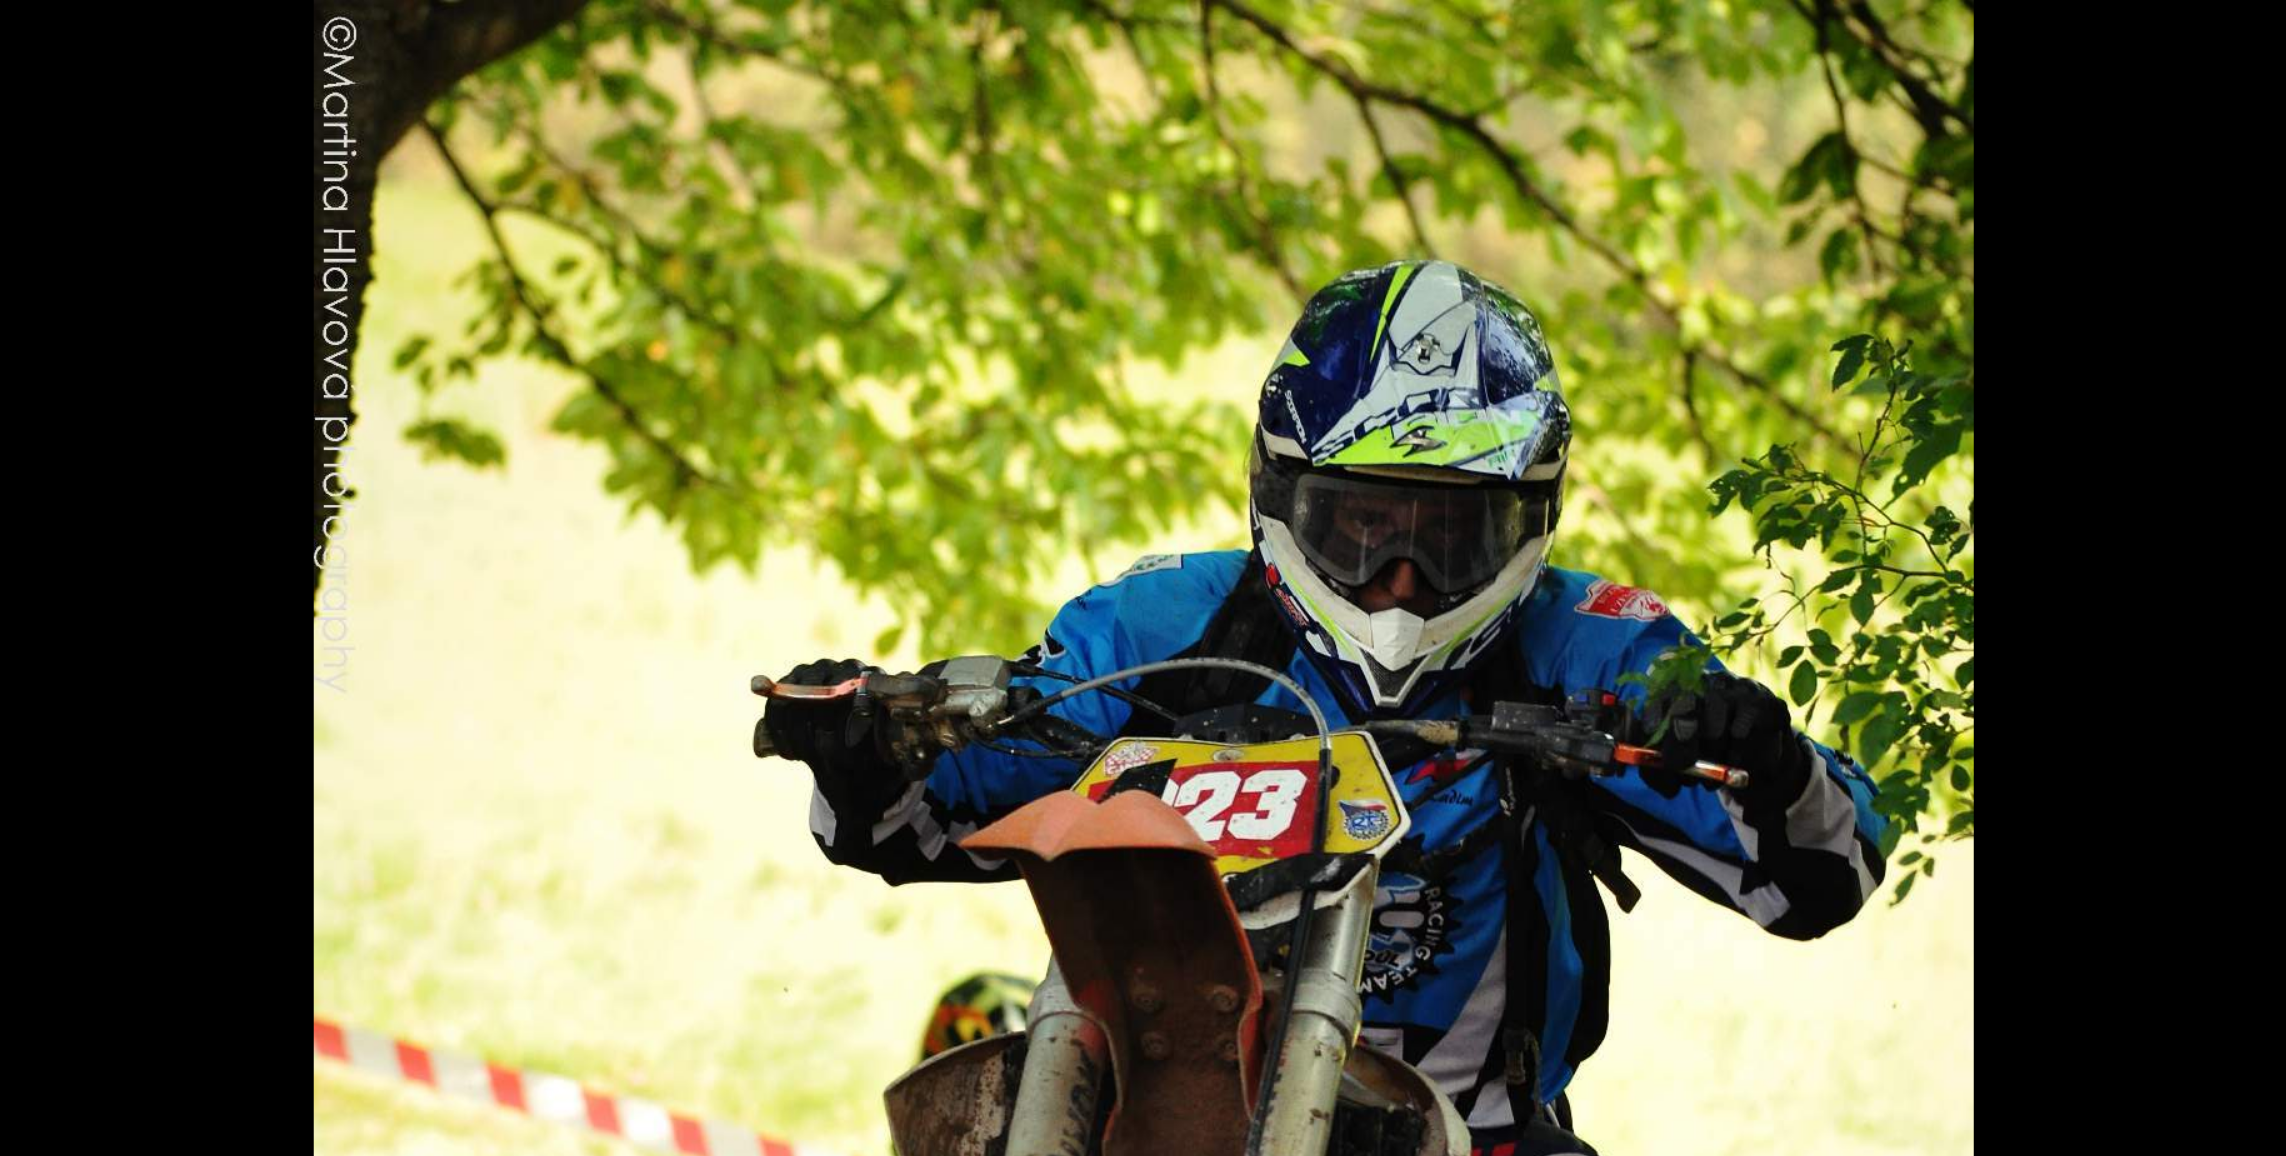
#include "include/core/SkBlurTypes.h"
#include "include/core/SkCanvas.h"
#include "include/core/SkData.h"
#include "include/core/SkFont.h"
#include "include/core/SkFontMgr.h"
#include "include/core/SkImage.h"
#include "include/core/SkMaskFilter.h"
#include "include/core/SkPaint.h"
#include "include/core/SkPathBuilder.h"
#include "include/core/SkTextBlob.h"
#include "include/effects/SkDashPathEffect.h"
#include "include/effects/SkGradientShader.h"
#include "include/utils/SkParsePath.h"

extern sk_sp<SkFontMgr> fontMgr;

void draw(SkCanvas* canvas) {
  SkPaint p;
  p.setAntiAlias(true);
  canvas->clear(SK_ColorBLACK);
  canvas->drawImageRect(SkImages::DeferredFromEncodedData(SkData::MakeFromFileName("images/1.png")), SkRect::MakeLTRB(313, 0, 1974, 1156), SkSamplingOptions());
}
